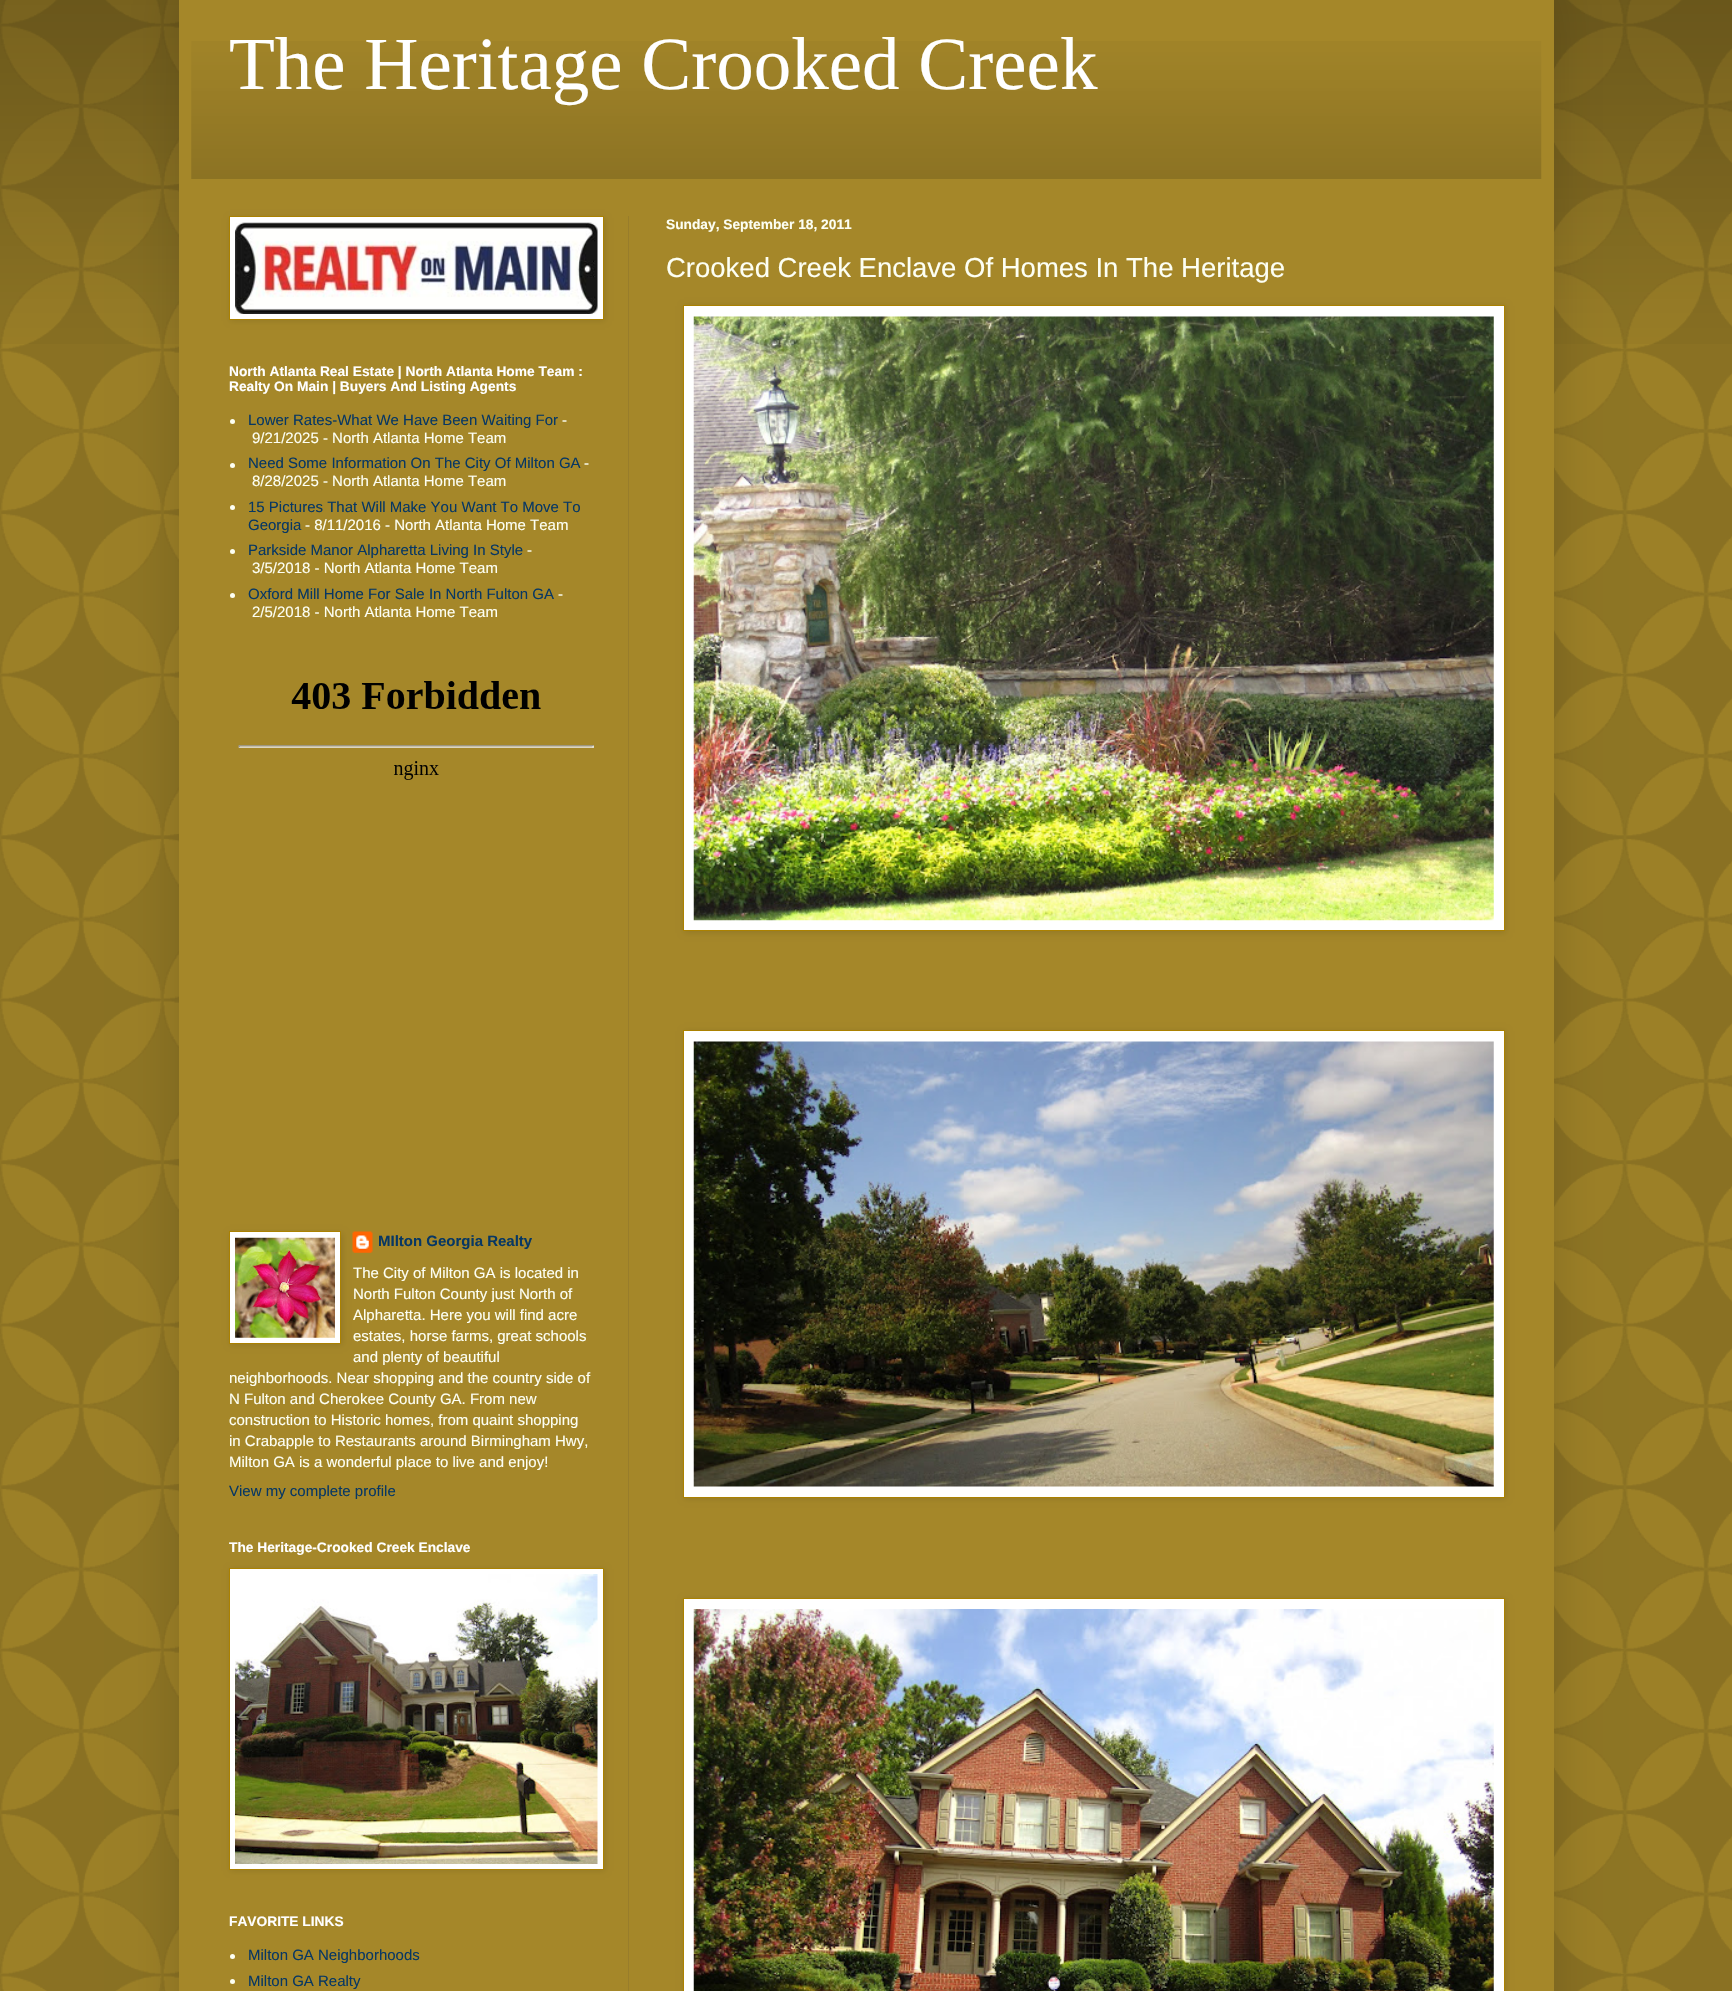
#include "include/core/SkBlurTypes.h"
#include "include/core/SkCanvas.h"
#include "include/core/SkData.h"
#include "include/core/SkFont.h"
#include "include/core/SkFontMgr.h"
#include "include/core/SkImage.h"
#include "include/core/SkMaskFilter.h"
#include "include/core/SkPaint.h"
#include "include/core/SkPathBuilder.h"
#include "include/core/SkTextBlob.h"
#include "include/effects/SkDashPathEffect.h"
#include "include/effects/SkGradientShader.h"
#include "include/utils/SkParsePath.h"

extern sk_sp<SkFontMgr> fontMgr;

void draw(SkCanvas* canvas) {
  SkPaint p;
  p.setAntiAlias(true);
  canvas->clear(SkColorSetRGB(165, 135, 41));
  canvas->drawImageRect(SkImages::DeferredFromEncodedData(SkData::MakeFromFileName("images/1.png")), SkRect::MakeLTRB(0, 0, 1732, 1991), SkSamplingOptions());
  canvas->drawImageRect(SkImages::DeferredFromEncodedData(SkData::MakeFromFileName("images/2.png")), SkRect::MakeLTRB(0, 0, 1732, 344), SkSamplingOptions());
  p.setColor(SkColorSetARGB(38, 0, 0, 0));
  p.setMaskFilter(SkMaskFilter::MakeBlur(kNormal_SkBlurStyle, 25));
  canvas->drawRect(SkRect::MakeLTRB(179, -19, 1554, 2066), p);
  p.setMaskFilter(nullptr);
  p.setColor(SkColorSetRGB(165, 135, 41));
  canvas->drawRect(SkRect::MakeLTRB(179, 0, 1554, 1991), p);
  canvas->drawImageRect(SkImages::DeferredFromEncodedData(SkData::MakeFromFileName("images/3.png")), SkRect::MakeLTRB(191, 41, 1542, 179), SkSamplingOptions());
  p.setColor(SkColorSetRGB(152, 125, 43));
  canvas->drawRect(SkRect::MakeLTRB(628, 216, 629, 1991), p);
  p.setColor(SkColorSetARGB(26, 0, 0, 0));
  p.setMaskFilter(SkMaskFilter::MakeBlur(kNormal_SkBlurStyle, 3));
  canvas->drawRect(SkRect::MakeLTRB(684, 306, 1506, 933), p);
  p.setMaskFilter(nullptr);
  p.setColor(SK_ColorWHITE);
  canvas->drawRect(SkRect::MakeLTRB(683.5f, 305.5f, 1504.5f, 930.5f), p);
  p.setStyle(SkPaint::kStroke_Style);
  p.setStrokeWidth(1);
  p.setColor(SkColorSetRGB(171, 129, 0));
  canvas->drawRect(SkRect::MakeLTRB(683.5f, 305.5f, 1504.5f, 930.5f), p);
  canvas->drawImageRect(SkImages::DeferredFromEncodedData(SkData::MakeFromFileName("images/4.png")), SkRect::MakeLTRB(693, 316, 1494, 921), SkSamplingOptions());
  p.setStyle(SkPaint::kFill_Style);
  p.setColor(SkColorSetARGB(26, 0, 0, 0));
  p.setMaskFilter(SkMaskFilter::MakeBlur(kNormal_SkBlurStyle, 3));
  canvas->drawRect(SkRect::MakeLTRB(684, 1031, 1506, 1499), p);
  p.setMaskFilter(nullptr);
  p.setColor(SK_ColorWHITE);
  canvas->drawRect(SkRect::MakeLTRB(683.5f, 1030.5f, 1504.5f, 1497.5f), p);
  p.setStyle(SkPaint::kStroke_Style);
  p.setColor(SkColorSetRGB(171, 129, 0));
  canvas->drawRect(SkRect::MakeLTRB(683.5f, 1030.5f, 1504.5f, 1497.5f), p);
  canvas->drawImageRect(SkImages::DeferredFromEncodedData(SkData::MakeFromFileName("images/5.png")), SkRect::MakeLTRB(693, 1041, 1494, 1487), SkSamplingOptions());
  p.setStyle(SkPaint::kFill_Style);
  p.setColor(SkColorSetARGB(26, 0, 0, 0));
  p.setMaskFilter(SkMaskFilter::MakeBlur(kNormal_SkBlurStyle, 3));
  canvas->drawRect(SkRect::MakeLTRB(684, 1599, 1506, 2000), p);
  p.setMaskFilter(nullptr);
  p.setColor(SK_ColorWHITE);
  canvas->drawRect(SkRect::MakeLTRB(683.5f, 1598.5f, 1504.5f, 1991.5f), p);
  p.setStyle(SkPaint::kStroke_Style);
  p.setColor(SkColorSetRGB(171, 129, 0));
  canvas->drawRect(SkRect::MakeLTRB(683.5f, 1598.5f, 1504.5f, 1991.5f), p);
  canvas->drawImageRect(SkImages::DeferredFromEncodedData(SkData::MakeFromFileName("images/6.png")), SkRect::MakeLTRB(693, 1609, 1494, 1991), SkSamplingOptions());
  p.setStyle(SkPaint::kFill_Style);
  p.setColor(SkColorSetARGB(26, 0, 0, 0));
  p.setMaskFilter(SkMaskFilter::MakeBlur(kNormal_SkBlurStyle, 3));
  canvas->drawRect(SkRect::MakeLTRB(230, 218, 605, 321), p);
  p.setMaskFilter(nullptr);
  p.setColor(SK_ColorWHITE);
  canvas->drawRect(SkRect::MakeLTRB(229.5f, 216.5f, 603.5f, 319.5f), p);
  p.setStyle(SkPaint::kStroke_Style);
  p.setColor(SkColorSetRGB(171, 129, 0));
  canvas->drawRect(SkRect::MakeLTRB(229.5f, 216.5f, 603.5f, 319.5f), p);
  canvas->drawImageRect(SkImages::DeferredFromEncodedData(SkData::MakeFromFileName("images/7.png")), SkRect::MakeLTRB(235, 222, 598, 314), SkSamplingOptions());
  p.setStyle(SkPaint::kFill_Style);
  p.setColor(SkColorSetRGB(253, 255, 243));
  canvas->drawCircle(232.5f, 421.5f, 2.5f, p);
  canvas->drawCircle(232.5f, 465.5f, 2.5f, p);
  canvas->drawCircle(232.5f, 507.5f, 2.5f, p);
  canvas->drawCircle(232.5f, 551.5f, 2.5f, p);
  canvas->drawCircle(232.5f, 595.5f, 2.5f, p);
  canvas->drawImageRect(SkImages::DeferredFromEncodedData(SkData::MakeFromFileName("images/8.png")), SkRect::MakeLTRB(238, 681, 594, 780), SkSamplingOptions());
  canvas->drawImageRect(SkImages::DeferredFromEncodedData(SkData::MakeFromFileName("images/10.png")), SkRect::MakeLTRB(352, 1231, 373, 1253), SkSamplingOptions());
  p.setColor(SkColorSetARGB(26, 0, 0, 0));
  p.setMaskFilter(SkMaskFilter::MakeBlur(kNormal_SkBlurStyle, 3));
  canvas->drawRect(SkRect::MakeLTRB(230, 1233, 343, 1345), p);
  p.setMaskFilter(nullptr);
  p.setColor(SK_ColorWHITE);
  canvas->drawRect(SkRect::MakeLTRB(229.5f, 1231.5f, 340.5f, 1343.5f), p);
  p.setStyle(SkPaint::kStroke_Style);
  p.setColor(SkColorSetRGB(171, 129, 0));
  canvas->drawRect(SkRect::MakeLTRB(229.5f, 1231.5f, 340.5f, 1343.5f), p);
  canvas->drawImageRect(SkImages::DeferredFromEncodedData(SkData::MakeFromFileName("images/9.png")), SkRect::MakeLTRB(235, 1237, 335, 1338), SkSamplingOptions());
  p.setStyle(SkPaint::kFill_Style);
  p.setColor(SkColorSetARGB(26, 0, 0, 0));
  p.setMaskFilter(SkMaskFilter::MakeBlur(kNormal_SkBlurStyle, 3));
  canvas->drawRect(SkRect::MakeLTRB(230, 1569, 605, 1871), p);
  p.setMaskFilter(nullptr);
  p.setColor(SK_ColorWHITE);
  canvas->drawRect(SkRect::MakeLTRB(229.5f, 1568.5f, 603.5f, 1869.5f), p);
  p.setStyle(SkPaint::kStroke_Style);
  p.setColor(SkColorSetRGB(171, 129, 0));
  canvas->drawRect(SkRect::MakeLTRB(229.5f, 1568.5f, 603.5f, 1869.5f), p);
  canvas->drawImageRect(SkImages::DeferredFromEncodedData(SkData::MakeFromFileName("images/11.png")), SkRect::MakeLTRB(235, 1574, 598, 1864), SkSamplingOptions());
  p.setStyle(SkPaint::kFill_Style);
  p.setColor(SkColorSetRGB(253, 255, 243));
  canvas->drawCircle(232.5f, 1956.5f, 2.5f, p);
  canvas->drawCircle(232.5f, 1981.5f, 2.5f, p);
  SkFont font1(fontMgr->matchFamilyStyle("Liberation Serif", SkFontStyle::Normal()), 75);
  font1.setSubpixel(true);
  p.setColor(SK_ColorWHITE);
  canvas->drawString("The Heritage Crooked Creek", 229, 89, font1, p);
  SkFont font2(fontMgr->matchFamilyStyle("Liberation Sans", SkFontStyle::Bold()), 13.75f);
  font2.setSubpixel(true);
  p.setColor(SkColorSetRGB(253, 255, 243));
  canvas->drawString("Sunday, September 18, 2011", 666, 229, font2, p);
  SkFont font3(fontMgr->matchFamilyStyle("Liberation Sans", SkFontStyle::Normal()), 27.5f);
  font3.setSubpixel(true);
  canvas->drawString("Crooked Creek Enclave Of Homes In The Heritage", 666, 277, font3, p);
  p.setColor(SK_ColorWHITE);
  canvas->drawString("North Atlanta Real Estate | North Atlanta Home Team :", 229, 376, font2, p);
  canvas->drawString("Realty On Main | Buyers And Listing Agents", 229, 391, font2, p);
  SkFont font4(fontMgr->matchFamilyStyle("Liberation Sans", SkFontStyle::Normal()), 15);
  font4.setSubpixel(true);
  p.setColor(SkColorSetRGB(7, 55, 99));
  canvas->drawString("Lower Rates-What We Have Been Waiting For", 248, 425, font4, p);
  p.setColor(SkColorSetRGB(253, 255, 243));
  canvas->drawString("-", 562, 425, font4, p);
  canvas->drawString("9/21/2025 - North Atlanta Home Team", 252, 443, font4, p);
  p.setColor(SkColorSetRGB(7, 55, 99));
  canvas->drawString("Need Some Information On The City Of Milton GA", 248, 468, font4, p);
  p.setColor(SkColorSetRGB(253, 255, 243));
  canvas->drawString("-", 584, 468, font4, p);
  canvas->drawString("8/28/2025 - North Atlanta Home Team", 252, 486, font4, p);
  p.setColor(SkColorSetRGB(7, 55, 99));
  canvas->drawString("15 Pictures That Will Make You Want To Move To", 248, 512, font4, p);
  canvas->drawString("Georgia", 248, 530, font4, p);
  p.setColor(SkColorSetRGB(253, 255, 243));
  canvas->drawString("- 8/11/2016 - North Atlanta Home Team", 305, 530, font4, p);
  p.setColor(SkColorSetRGB(7, 55, 99));
  canvas->drawString("Parkside Manor Alpharetta Living In Style", 248, 555, font4, p);
  p.setColor(SkColorSetRGB(253, 255, 243));
  canvas->drawString("-", 527, 555, font4, p);
  canvas->drawString("3/5/2018 - North Atlanta Home Team", 252, 573, font4, p);
  p.setColor(SkColorSetRGB(7, 55, 99));
  canvas->drawString("Oxford Mill Home For Sale In North Fulton GA", 248, 599, font4, p);
  p.setColor(SkColorSetRGB(253, 255, 243));
  canvas->drawString("-", 558, 599, font4, p);
  canvas->drawString("2/5/2018 - North Atlanta Home Team", 252, 617, font4, p);
  SkFont font5(fontMgr->matchFamilyStyle("Liberation Sans", SkFontStyle::Bold()), 15);
  font5.setSubpixel(true);
  p.setColor(SkColorSetRGB(7, 55, 99));
  canvas->drawString("MIlton Georgia Realty", 378, 1246, font5, p);
  p.setColor(SkColorSetRGB(253, 255, 243));
  canvas->drawString("The City of Milton GA is located in", 353, 1278, font4, p);
  canvas->drawString("North Fulton County just North of", 353, 1299, font4, p);
  canvas->drawString("Alpharetta. Here you will find acre", 353, 1320, font4, p);
  canvas->drawString("estates, horse farms, great schools", 353, 1341, font4, p);
  canvas->drawString("and plenty of beautiful", 353, 1362, font4, p);
  canvas->drawString("neighborhoods. Near shopping and the country side of", 229, 1383, font4, p);
  canvas->drawString("N Fulton and Cherokee County GA. From new", 229, 1404, font4, p);
  canvas->drawString("construction to Historic homes, from quaint shopping", 229, 1425, font4, p);
  canvas->drawString("in Crabapple to Restaurants around Birmingham Hwy,", 229, 1446, font4, p);
  canvas->drawString("Milton GA is a wonderful place to live and enjoy!", 229, 1467, font4, p);
  p.setColor(SkColorSetRGB(7, 55, 99));
  canvas->drawString("View my complete profile", 229, 1496, font4, p);
  p.setColor(SK_ColorWHITE);
  canvas->drawString("The Heritage-Crooked Creek Enclave", 229, 1552, font2, p);
  canvas->drawString("FAVORITE LINKS", 229, 1926, font2, p);
  p.setColor(SkColorSetRGB(7, 55, 99));
  canvas->drawString("Milton GA Neighborhoods", 248, 1960, font4, p);
  canvas->drawString("Milton GA Realty", 248, 1986, font4, p);
}
